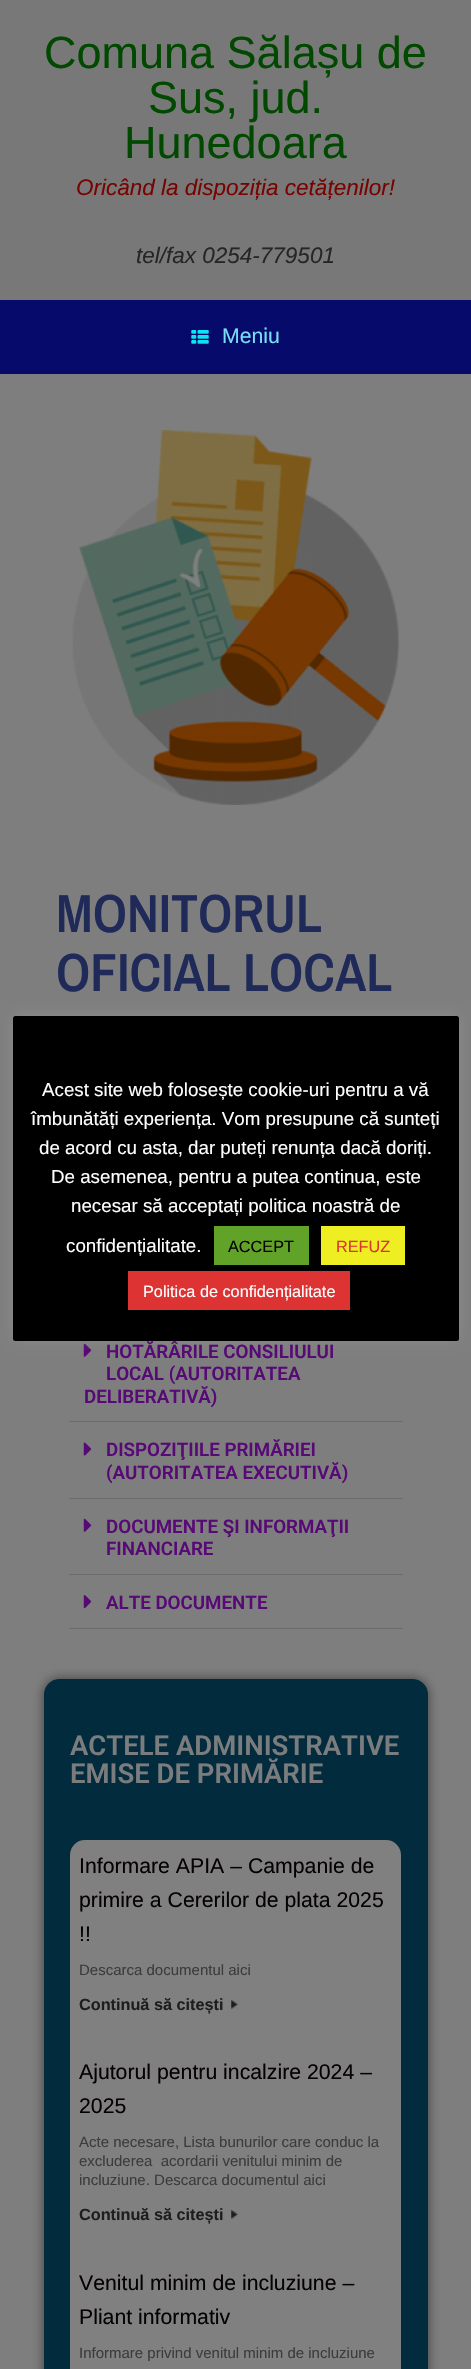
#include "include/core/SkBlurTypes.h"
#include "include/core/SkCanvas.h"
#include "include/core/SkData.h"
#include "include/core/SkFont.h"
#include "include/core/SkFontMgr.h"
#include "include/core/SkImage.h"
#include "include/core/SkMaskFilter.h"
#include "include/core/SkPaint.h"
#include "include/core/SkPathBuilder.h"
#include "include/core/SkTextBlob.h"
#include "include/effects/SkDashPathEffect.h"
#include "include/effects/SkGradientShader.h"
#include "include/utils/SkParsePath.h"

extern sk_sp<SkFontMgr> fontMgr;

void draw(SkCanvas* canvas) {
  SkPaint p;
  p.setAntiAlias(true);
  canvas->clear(SkColorSetRGB(120, 120, 120));
  p.setColor(SkColorSetRGB(6, 11, 107));
  canvas->drawRect(SkRect::MakeLTRB(0, 300, 471, 374), p);
  canvas->drawImageRect(SkImages::DeferredFromEncodedData(SkData::MakeFromFileName("images/1.png")), SkRect::MakeLTRB(191, 330, 209, 344), SkSamplingOptions());
  p.setColor(SkColorSetRGB(126, 126, 126));
  canvas->drawRect(SkRect::MakeLTRB(0, 374, 471, 2369), p);
  canvas->drawImageRect(SkImages::DeferredFromEncodedData(SkData::MakeFromFileName("images/2.png")), SkRect::MakeLTRB(72, 430, 399, 805), SkSamplingOptions());
  p.setColor(SkColorSetRGB(107, 108, 110));
  canvas->drawRect(SkRect::MakeLTRB(69, 1421, 403, 1422), p);
  canvas->drawImageRect(SkImages::DeferredFromEncodedData(SkData::MakeFromFileName("images/3.png")), SkRect::MakeLTRB(83, 1343, 92, 1357), SkSamplingOptions());
  canvas->drawRect(SkRect::MakeLTRB(69, 1498, 403, 1499), p);
  canvas->drawImageRect(SkImages::DeferredFromEncodedData(SkData::MakeFromFileName("images/4.png")), SkRect::MakeLTRB(83, 1442, 92, 1456), SkSamplingOptions());
  canvas->drawRect(SkRect::MakeLTRB(69, 1574, 403, 1575), p);
  canvas->drawImageRect(SkImages::DeferredFromEncodedData(SkData::MakeFromFileName("images/3.png")), SkRect::MakeLTRB(83, 1518, 92, 1532), SkSamplingOptions());
  canvas->drawRect(SkRect::MakeLTRB(69, 1628, 403, 1629), p);
  canvas->drawImageRect(SkImages::DeferredFromEncodedData(SkData::MakeFromFileName("images/5.png")), SkRect::MakeLTRB(83, 1595, 92, 1609), SkSamplingOptions());
  p.setColor(SkColorSetARGB(128, 0, 0, 0));
  p.setMaskFilter(SkMaskFilter::MakeBlur(kNormal_SkBlurStyle, 6));
  canvas->drawRoundRect(SkRect::MakeLTRB(44, 1679, 428, 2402), 15, 15, p);
  p.setMaskFilter(nullptr);
  p.setColor(SkColorSetRGB(2, 43, 61));
  canvas->drawRoundRect(SkRect::MakeLTRB(44.5f, 1679.5f, 427.5f, 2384.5f), 14.5f, 14.5f, p);
  p.setStyle(SkPaint::kStroke_Style);
  p.setStrokeWidth(1);
  canvas->drawRoundRect(SkRect::MakeLTRB(44.5f, 1679.5f, 427.5f, 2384.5f), 14.5f, 14.5f, p);
  p.setStyle(SkPaint::kFill_Style);
  p.setColor(SkColorSetRGB(128, 128, 128));
  canvas->drawRoundRect(SkRect::MakeLTRB(70, 1840, 401, 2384), 15, 15, p);
  canvas->drawImageRect(SkImages::DeferredFromEncodedData(SkData::MakeFromFileName("images/6.png")), SkRect::MakeLTRB(231, 2000, 238, 2009), SkSamplingOptions());
  canvas->drawImageRect(SkImages::DeferredFromEncodedData(SkData::MakeFromFileName("images/6.png")), SkRect::MakeLTRB(231, 2210, 238, 2219), SkSamplingOptions());
  p.setColor(SkColorSetARGB(77, 172, 171, 171));
  p.setMaskFilter(SkMaskFilter::MakeBlur(kNormal_SkBlurStyle, 6));
  canvas->drawRoundRect(SkRect::MakeLTRB(13, 1015, 459, 1340), 2.5f, 2.5f, p);
  p.setMaskFilter(nullptr);
  p.setColor(SK_ColorBLACK);
  canvas->drawRoundRect(SkRect::MakeLTRB(13, 1016, 459, 1341), 2.5f, 2.5f, p);
  p.setColor(SkColorSetRGB(97, 162, 41));
  canvas->drawRect(SkRect::MakeLTRB(214, 1226, 309, 1265), p);
  p.setColor(SkColorSetRGB(238, 238, 34));
  canvas->drawRect(SkRect::MakeLTRB(321, 1226, 405, 1265), p);
  p.setColor(SkColorSetRGB(221, 51, 51));
  canvas->drawRect(SkRect::MakeLTRB(128, 1271, 350, 1310), p);
  SkFont font1(fontMgr->matchFamilyStyle("Liberation Sans", SkFontStyle::Normal()), 45);
  font1.setSubpixel(true);
  p.setColor(SkColorSetRGB(1, 73, 0));
  canvas->drawString("Comuna Sălașu de", 44, 68, font1, p);
  canvas->drawString("Sus, jud.", 148, 113, font1, p);
  canvas->drawString("Hunedoara", 124, 158, font1, p);
  SkFont font2(fontMgr->matchFamilyStyle("Liberation Sans", SkFontStyle::Italic()), 22.5f);
  font2.setSubpixel(true);
  p.setColor(SkColorSetRGB(119, 4, 0));
  canvas->drawString("Oricând la dispoziția cetățenilor!", 76, 195, font2, p);
  p.setColor(SkColorSetRGB(38, 38, 38));
  canvas->drawString("tel/fax 0254-779501", 136, 263, font2, p);
  SkFont font3(fontMgr->matchFamilyStyle("Liberation Sans", SkFontStyle::Normal()), 21.25f);
  font3.setSubpixel(true);
  p.setColor(SkColorSetRGB(121, 222, 247));
  canvas->drawString("Meniu", 222, 343, font3, p);
  SkFont font4(fontMgr->matchFamilyStyle("Archivo Narrow", SkFontStyle(600, SkFontStyle::kNormal_Width, SkFontStyle::kUpright_Slant)), 53.75f);
  font4.setSubpixel(true);
  p.setColor(SkColorSetRGB(32, 42, 89));
  canvas->drawString("MONITORUL", 56, 932, font4, p);
  canvas->drawString("OFICIAL LOCAL", 56, 991, font4, p);
  SkFont font5(fontMgr->matchFamilyStyle("Roboto", SkFontStyle(600, SkFontStyle::kNormal_Width, SkFontStyle::kUpright_Slant)), 18.75f);
  font5.setSubpixel(true);
  p.setColor(SkColorSetRGB(87, 10, 117));
  canvas->drawString("HOTĂRÂRILE CONSILIULUI", 106, 1358, font5, p);
  canvas->drawString("LOCAL (AUTORITATEA", 106, 1380, font5, p);
  canvas->drawString("DELIBERATIVĂ)", 84, 1403, font5, p);
  canvas->drawString("DISPOZIŢIILE PRIMĂRIEI", 106, 1456, font5, p);
  canvas->drawString("(AUTORITATEA EXECUTIVĂ)", 106, 1479, font5, p);
  canvas->drawString("DOCUMENTE ŞI INFORMAŢII", 106, 1533, font5, p);
  canvas->drawString("FINANCIARE", 106, 1555, font5, p);
  canvas->drawString("ALTE DOCUMENTE", 106, 1609, font5, p);
  SkFont font6(fontMgr->matchFamilyStyle("Roboto", SkFontStyle(600, SkFontStyle::kNormal_Width, SkFontStyle::kUpright_Slant)), 27.5f);
  font6.setSubpixel(true);
  p.setColor(SkColorSetRGB(122, 124, 125));
  canvas->drawString("ACTELE ADMINISTRATIVE", 70, 1755, font6, p);
  canvas->drawString("EMISE DE PRIMĂRIE", 70, 1783, font6, p);
  p.setColor(SkColorSetRGB(5, 1, 1));
  canvas->drawString("Informare APIA – Campanie de", 79, 1873, font3, p);
  canvas->drawString("primire a Cererilor de plata 2025", 79, 1907, font3, p);
  canvas->drawString("!!", 79, 1941, font3, p);
  SkFont font7(fontMgr->matchFamilyStyle("Liberation Sans", SkFontStyle::Normal()), 15);
  font7.setSubpixel(true);
  p.setColor(SkColorSetRGB(60, 60, 60));
  canvas->drawString("Descarca documentul aici", 79, 1975, font7, p);
  SkFont font8(fontMgr->matchFamilyStyle("Liberation Sans", SkFontStyle::Bold()), 16.25f);
  font8.setSubpixel(true);
  p.setColor(SkColorSetRGB(30, 30, 30));
  canvas->drawString("Continuă să citești", 79, 2010, font8, p);
  p.setColor(SkColorSetRGB(5, 1, 1));
  canvas->drawString("Ajutorul pentru incalzire 2024 –", 79, 2079, font3, p);
  canvas->drawString("2025", 79, 2113, font3, p);
  p.setColor(SkColorSetRGB(60, 60, 60));
  canvas->drawString("Acte necesare, Lista bunurilor care conduc la", 79, 2147, font7, p);
  canvas->drawString("excluderea  acordarii venitului minim de", 79, 2166, font7, p);
  canvas->drawString("incluziune. Descarca documentul aici", 79, 2185, font7, p);
  p.setColor(SkColorSetRGB(30, 30, 30));
  canvas->drawString("Continuă să citești", 79, 2220, font8, p);
  p.setColor(SkColorSetRGB(5, 1, 1));
  canvas->drawString("Venitul minim de incluziune –", 79, 2290, font3, p);
  canvas->drawString("Pliant informativ", 79, 2324, font3, p);
  p.setColor(SkColorSetRGB(60, 60, 60));
  canvas->drawString("Informare privind venitul minim de incluziune", 79, 2358, font7, p);
  SkFont font9(fontMgr->matchFamilyStyle("Liberation Sans", SkFontStyle::Normal()), 18.75f);
  font9.setSubpixel(true);
  p.setColor(SK_ColorWHITE);
  canvas->drawString("Acest site web folosește cookie-uri pentru a vă", 42, 1096, font9, p);
  canvas->drawString("îmbunătăți experiența. Vom presupune că sunteți", 31, 1125, font9, p);
  canvas->drawString("de acord cu asta, dar puteți renunța dacă doriți.", 39, 1154, font9, p);
  canvas->drawString("De asemenea, pentru a putea continua, este", 51, 1183, font9, p);
  canvas->drawString("necesar să acceptați politica noastră de", 71, 1212, font9, p);
  canvas->drawString("confidențialitate.", 66, 1252, font9, p);
  SkFont font10(fontMgr->matchFamilyStyle("Liberation Sans", SkFontStyle::Normal()), 16.25f);
  font10.setSubpixel(true);
  p.setColor(SkColorSetRGB(5, 1, 1));
  canvas->drawString("ACCEPT", 228, 1252, font10, p);
  p.setColor(SkColorSetRGB(221, 51, 51));
  canvas->drawString("REFUZ", 336, 1252, font10, p);
  p.setColor(SK_ColorWHITE);
  canvas->drawString("Politica de confidențialitate", 143, 1297, font10, p);
}
